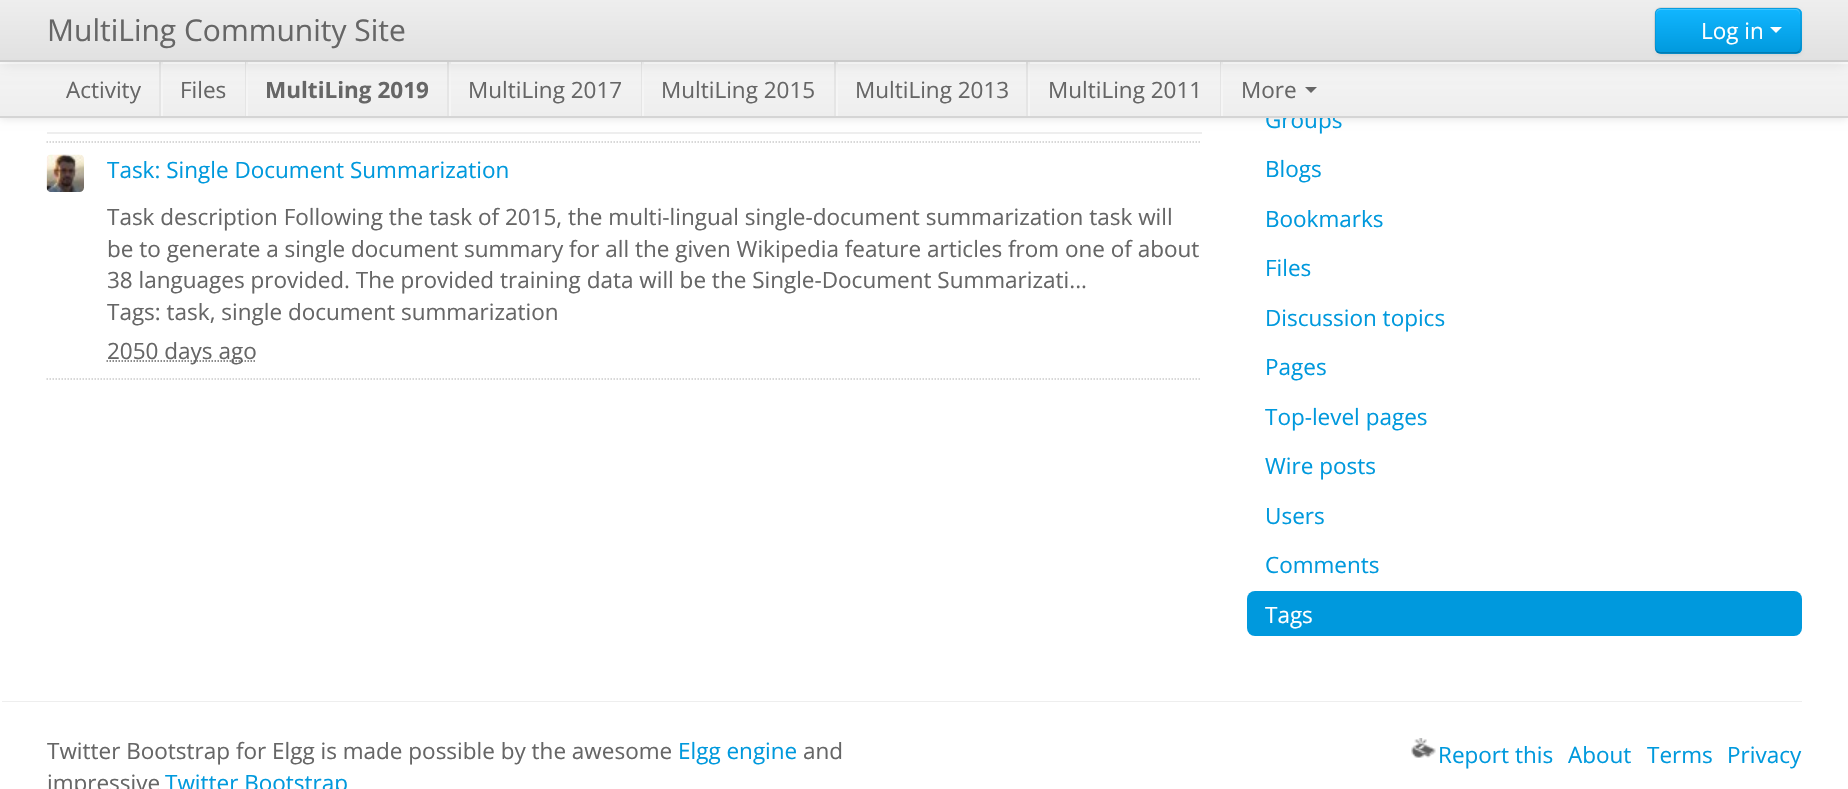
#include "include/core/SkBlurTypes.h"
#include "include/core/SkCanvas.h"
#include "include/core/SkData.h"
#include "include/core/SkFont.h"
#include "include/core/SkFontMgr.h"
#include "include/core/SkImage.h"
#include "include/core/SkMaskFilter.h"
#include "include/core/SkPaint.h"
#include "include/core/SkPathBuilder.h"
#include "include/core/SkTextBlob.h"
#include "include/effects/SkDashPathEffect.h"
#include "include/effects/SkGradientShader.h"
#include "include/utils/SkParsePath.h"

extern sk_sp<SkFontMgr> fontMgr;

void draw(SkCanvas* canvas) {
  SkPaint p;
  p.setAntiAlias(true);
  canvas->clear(SK_ColorWHITE);
  p.setColor(SkColorSetARGB(26, 0, 0, 0));
  p.setMaskFilter(SkMaskFilter::MakeBlur(kNormal_SkBlurStyle, 4));
  canvas->drawRect(SkRect::MakeLTRB(0, 63, 1848, 119), p);
  p.setMaskFilter(nullptr);
  p.setColor(SK_ColorWHITE);
  canvas->drawRect(SkRect::MakeLTRB(0, 62, 1848, 64), p);
  p.setColor(SkColorSetRGB(238, 238, 238));
  canvas->drawRect(SkRect::MakeLTRB(47, 132, 1202, 134), p);
  p.setStyle(SkPaint::kStroke_Style);
  p.setStrokeWidth(1.5f);
  p.setColor(SkColorSetRGB(204, 204, 204));
  p.setPathEffect(SkDashPathEffect::Make({{1.5f, 1.5f}}, 0));
  canvas->drawPath(SkPathBuilder().moveTo(46.5f, 142).lineTo(1201.5f, 142).detach(), p);
  p.setPathEffect(nullptr);
  p.setPathEffect(SkDashPathEffect::Make({{1.5f, 1.5f}}, 0));
  canvas->drawPath(SkPathBuilder().moveTo(46.5f, 379).lineTo(1201.5f, 379).detach(), p);
  p.setPathEffect(nullptr);
  canvas->drawImageRect(SkImages::DeferredFromEncodedData(SkData::MakeFromFileName("images/1.png")), SkRect::MakeLTRB(46, 154, 84, 192), SkSamplingOptions());
  p.setColor(SkColorSetRGB(102, 102, 102));
  p.setPathEffect(SkDashPathEffect::Make({{1.5f, 1.5f}}, 0));
  canvas->drawPath(SkPathBuilder().moveTo(106.5f, 361).lineTo(256, 361).detach(), p);
  p.setPathEffect(nullptr);
  p.setStyle(SkPaint::kFill_Style);
  p.setColor(SkColorSetRGB(0, 153, 221));
  canvas->drawRoundRect(SkRect::MakeLTRB(1247, 591, 1802, 636), 8, 8, p);
  p.setColor(SkColorSetRGB(238, 238, 238));
  canvas->drawRect(SkRect::MakeLTRB(2, 701, 1802, 702), p);
  canvas->drawImageRect(SkImages::DeferredFromEncodedData(SkData::MakeFromFileName("images/2.png")), SkRect::MakeLTRB(1411, 738, 1436, 758), SkSamplingOptions());
  SkFont font1(fontMgr->matchFamilyStyle("Open Sans", SkFontStyle::Normal()), 22.5f);
  font1.setSubpixel(true);
  p.setColor(SkColorSetRGB(0, 153, 221));
  canvas->drawString("Task: Single Document Summarization", 107, 178, font1, p);
  p.setColor(SkColorSetRGB(102, 102, 102));
  canvas->drawString("Task description Following the task of 2015, the multi-lingual single-document summarization task will", 107, 225, font1, p);
  canvas->drawString("be to generate a single document summary for all the given Wikipedia feature articles from one of about", 107, 257, font1, p);
  canvas->drawString("38 languages provided. The provided training data will be the Single-Document Summarizati...", 107, 288, font1, p);
  canvas->drawString("Tags: task, single document summarization", 107, 320, font1, p);
  canvas->drawString("2050 days ago", 107, 359, font1, p);
  p.setColor(SkColorSetRGB(0, 153, 221));
  canvas->drawString("Groups", 1265, 128, font1, p);
  {
    const SkColor colors[] = {SkColorSetRGB(245, 245, 245), SkColorSetRGB(238, 238, 238)};
    const float stops[] = {0, 1};
    const SkPoint ends[] = {{924, 61}, {924, 116}};
    p.setShader(SkGradientShader::MakeLinear(ends, colors, stops, 2, SkTileMode::kClamp));
    p.setAlpha(255);
  }
  canvas->drawRect(SkRect::MakeLTRB(0, 64, 1848, 116), p);
  p.setShader(nullptr);
  p.setColor(SkColorSetRGB(245, 245, 245));
  canvas->drawRect(SkRect::MakeLTRB(1221, 62, 1223, 116), p);
  canvas->drawRect(SkRect::MakeLTRB(1028, 62, 1030, 116), p);
  p.setColor(SkColorSetRGB(229, 229, 229));
  canvas->drawRect(SkRect::MakeLTRB(1220, 62, 1221, 116), p);
  p.setColor(SkColorSetRGB(245, 245, 245));
  canvas->drawRect(SkRect::MakeLTRB(836, 62, 838, 116), p);
  p.setColor(SkColorSetRGB(229, 229, 229));
  canvas->drawRect(SkRect::MakeLTRB(1026, 62, 1028, 116), p);
  p.setColor(SkColorSetRGB(245, 245, 245));
  canvas->drawRect(SkRect::MakeLTRB(642, 62, 644, 116), p);
  p.setColor(SkColorSetRGB(229, 229, 229));
  canvas->drawRect(SkRect::MakeLTRB(834, 62, 836, 116), p);
  p.setColor(SkColorSetRGB(245, 245, 245));
  canvas->drawRect(SkRect::MakeLTRB(449, 62, 451, 116), p);
  p.setColor(SkColorSetRGB(229, 229, 229));
  canvas->drawRect(SkRect::MakeLTRB(641, 62, 642, 116), p);
  p.setColor(SkColorSetRGB(245, 245, 245));
  canvas->drawRect(SkRect::MakeLTRB(246, 62, 248, 116), p);
  p.setColor(SkColorSetRGB(229, 229, 229));
  canvas->drawRect(SkRect::MakeLTRB(447, 62, 449, 116), p);
  p.setColor(SkColorSetRGB(245, 245, 245));
  canvas->drawRect(SkRect::MakeLTRB(161, 62, 163, 116), p);
  p.setColor(SkColorSetRGB(229, 229, 229));
  canvas->drawRect(SkRect::MakeLTRB(245, 62, 246, 116), p);
  canvas->drawRect(SkRect::MakeLTRB(159, 62, 161, 116), p);
  p.setColor(SkColorSetARGB(26, 0, 0, 0));
  p.setMaskFilter(SkMaskFilter::MakeBlur(kNormal_SkBlurStyle, 7.5f));
  canvas->drawRect(SkRect::MakeLTRB(0, 2, 1848, 63), p);
  p.setMaskFilter(nullptr);
  p.setColor(SkColorSetRGB(204, 204, 204));
  canvas->drawRect(SkRect::MakeLTRB(0, 60, 1848, 62), p);
  {
    const SkColor colors[] = {SkColorSetRGB(238, 238, 238), SkColorSetRGB(225, 225, 225)};
    const float stops[] = {0, 1};
    const SkPoint ends[] = {{924, 0}, {924, 60}};
    p.setShader(SkGradientShader::MakeLinear(ends, colors, stops, 2, SkTileMode::kClamp));
    p.setAlpha(255);
  }
  canvas->drawRect(SkRect::MakeLTRB(0, 0, 1848, 60), p);
  p.setShader(nullptr);
  p.setColor(SkColorSetARGB(13, 0, 0, 0));
  p.setMaskFilter(SkMaskFilter::MakeBlur(kNormal_SkBlurStyle, 1.5f));
  canvas->drawRoundRect(SkRect::MakeLTRB(1655, 9, 1802, 56), 6, 6, p);
  p.setMaskFilter(nullptr);
  p.setColor(SkColorSetRGB(10, 170, 241));
  canvas->drawRoundRect(SkRect::MakeLTRB(1655, 8, 1802, 54), 6, 6, p);
  canvas->save();
  canvas->clipPath(SkPathBuilder().moveTo(1661, 8).lineTo(1796, 8).cubicTo(1799.5f, 8, 1802, 10.5f, 1802, 14).lineTo(1802, 48).cubicTo(1802, 51.5f, 1799.5f, 54, 1796, 54).lineTo(1661, 54).cubicTo(1657.5f, 54, 1655, 51.5f, 1655, 48).lineTo(1655, 14).cubicTo(1655, 10.5f, 1657.5f, 8, 1661, 8).close().detach(), true);
  {
    const SkColor colors[] = {SkColorSetRGB(17, 182, 255), SkColorSetRGB(0, 153, 221)};
    const float stops[] = {0, 1};
    const SkPoint ends[] = {{1728, 9}, {1728, 53}};
    p.setShader(SkGradientShader::MakeLinear(ends, colors, stops, 2, SkTileMode::kClamp));
    p.setAlpha(255);
  }
  canvas->drawRect(SkRect::MakeLTRB(1655, 9, 1802, 53), p);
  canvas->restore();
  p.setStyle(SkPaint::kStroke_Style);
  p.setShader(nullptr);
  p.setColor(SkColorSetARGB(64, 0, 0, 0));
  canvas->drawPath(SkPathBuilder().moveTo(1799, 51.5f).cubicTo(1798, 52.5f, 1797, 53, 1795.5f, 53).lineTo(1660.5f, 53).cubicTo(1659, 53, 1658, 52.5f, 1657, 51.5f).detach(), p);
  p.setStyle(SkPaint::kFill_Style);
  p.setColor(SkColorSetARGB(51, 255, 255, 255));
  canvas->drawPath(SkPathBuilder().moveTo(1660, 10).lineTo(1796, 10).cubicTo(1798, 10, 1800, 13, 1800, 15).lineTo(1800, 14).cubicTo(1800, 11, 1798, 9, 1795, 9).lineTo(1661, 9).cubicTo(1658, 9, 1656, 11, 1656, 14).lineTo(1656, 15).cubicTo(1656, 13, 1658, 10, 1660, 10).close().detach(), p);
  p.setStyle(SkPaint::kStroke_Style);
  p.setColor(SkColorSetARGB(26, 0, 0, 0));
  canvas->drawPath(SkPathBuilder().moveTo(1657, 51.5f).cubicTo(1653.5f, 48.5f, 1655, 40, 1655, 36.5f).lineTo(1655, 19).cubicTo(1655, 15, 1654.5f, 8.5f, 1660.5f, 8).lineTo(1795.5f, 8).cubicTo(1801.5f, 8.5f, 1801, 15, 1801, 19).lineTo(1801, 36.5f).cubicTo(1801, 40, 1802.5f, 48.5f, 1799, 51.5f).detach(), p);
  p.setStyle(SkPaint::kFill_Style);
  p.setColor(SK_ColorWHITE);
  canvas->drawPath(SkPathBuilder().moveTo(1770, 27).lineTo(1782, 27).lineTo(1776, 33).close().detach(), p);
  canvas->drawString("Log in", 1701, 39, font1, p);
  SkFont font2(fontMgr->matchFamilyStyle("Open Sans", SkFontStyle::Normal()), 30);
  font2.setSubpixel(true);
  p.setColor(SkColorSetRGB(102, 102, 102));
  canvas->drawString("MultiLing Community Site", 47, 41, font2, p);
  canvas->drawPath(SkPathBuilder().moveTo(1305, 87).lineTo(1317, 87).lineTo(1311, 93).close().detach(), p);
  canvas->drawString("More", 1241, 98, font1, p);
  canvas->drawString("MultiLing 2011", 1048, 98, font1, p);
  canvas->drawString("MultiLing 2013", 855, 98, font1, p);
  canvas->drawString("MultiLing 2015", 661, 98, font1, p);
  canvas->drawString("MultiLing 2017", 468, 98, font1, p);
  SkFont font3(fontMgr->matchFamilyStyle("Open Sans", SkFontStyle::Bold()), 22.5f);
  font3.setSubpixel(true);
  canvas->drawString("MultiLing 2019", 265, 98, font3, p);
  canvas->drawString("Files", 180, 98, font1, p);
  canvas->drawString("Activity", 66, 98, font1, p);
  p.setColor(SkColorSetRGB(213, 213, 213));
  canvas->drawRect(SkRect::MakeLTRB(0, 116, 1848, 118), p);
  p.setColor(SkColorSetRGB(0, 153, 221));
  canvas->drawString("Blogs", 1265, 177, font1, p);
  canvas->drawString("Bookmarks", 1265, 227, font1, p);
  canvas->drawString("Files", 1265, 276, font1, p);
  canvas->drawString("Discussion topics", 1265, 326, font1, p);
  canvas->drawString("Pages", 1265, 375, font1, p);
  canvas->drawString("Top-level pages", 1265, 425, font1, p);
  canvas->drawString("Wire posts", 1265, 474, font1, p);
  canvas->drawString("Users", 1265, 524, font1, p);
  canvas->drawString("Comments", 1265, 573, font1, p);
  p.setColor(SK_ColorWHITE);
  canvas->drawString("Tags", 1265, 623, font1, p);
  p.setColor(SkColorSetRGB(102, 102, 102));
  canvas->drawString("Twitter Bootstrap for Elgg is made possible by the awesome", 47, 759, font1, p);
  p.setColor(SkColorSetRGB(0, 153, 221));
  canvas->drawString("Elgg engine", 678, 759, font1, p);
  p.setColor(SkColorSetRGB(102, 102, 102));
  canvas->drawString("and", 803, 759, font1, p);
  canvas->drawString("impressive", 47, 791, font1, p);
  p.setColor(SkColorSetRGB(0, 153, 221));
  canvas->drawString("Twitter Bootstrap", 165, 791, font1, p);
  canvas->drawString("Report this", 1438, 763, font1, p);
  canvas->drawString("About", 1568, 763, font1, p);
  canvas->drawString("Terms", 1647, 763, font1, p);
  canvas->drawString("Privacy", 1727, 763, font1, p);
}
